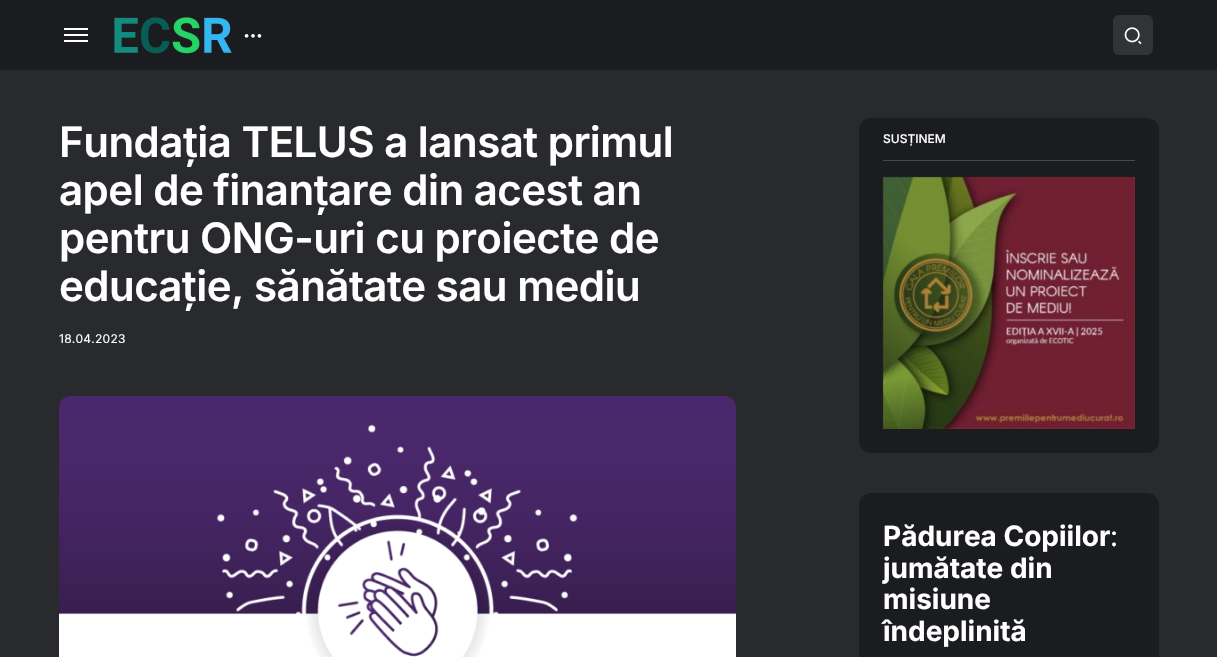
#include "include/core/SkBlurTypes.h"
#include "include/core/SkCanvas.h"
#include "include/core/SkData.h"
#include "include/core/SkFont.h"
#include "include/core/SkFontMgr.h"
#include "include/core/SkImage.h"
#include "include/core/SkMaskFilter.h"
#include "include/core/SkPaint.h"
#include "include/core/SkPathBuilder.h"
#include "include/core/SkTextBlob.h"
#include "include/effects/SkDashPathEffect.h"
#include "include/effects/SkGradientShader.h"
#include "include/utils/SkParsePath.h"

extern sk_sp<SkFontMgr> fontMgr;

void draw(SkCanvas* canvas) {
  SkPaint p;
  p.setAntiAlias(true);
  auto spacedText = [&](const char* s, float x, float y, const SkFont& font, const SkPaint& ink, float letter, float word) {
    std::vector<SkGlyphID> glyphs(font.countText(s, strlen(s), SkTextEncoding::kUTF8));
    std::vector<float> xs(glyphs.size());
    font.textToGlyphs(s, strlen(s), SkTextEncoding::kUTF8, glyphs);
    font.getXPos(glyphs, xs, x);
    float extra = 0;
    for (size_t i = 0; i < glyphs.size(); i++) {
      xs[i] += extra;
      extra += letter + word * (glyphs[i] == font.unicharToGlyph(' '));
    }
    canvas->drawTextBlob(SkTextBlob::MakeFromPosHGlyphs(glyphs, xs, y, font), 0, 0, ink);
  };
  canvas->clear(SkColorSetRGB(41, 42, 45));
  p.setColor(SkColorSetRGB(27, 28, 31));
  canvas->drawRect(SkRect::MakeLTRB(0, 0, 1217, 70), p);
  p.setColor(SK_ColorWHITE);
  canvas->drawRect(SkRect::MakeLTRB(64, 28, 88, 30), p);
  canvas->drawRect(SkRect::MakeLTRB(64, 34, 88, 36), p);
  canvas->drawRect(SkRect::MakeLTRB(64, 40, 88, 42), p);
  canvas->drawImageRect(SkImages::DeferredFromEncodedData(SkData::MakeFromFileName("images/1.png")), SkRect::MakeLTRB(114, 17, 232, 54), SkSamplingOptions());
  canvas->drawImageRect(SkImages::DeferredFromEncodedData(SkData::MakeFromFileName("images/2.png")), SkRect::MakeLTRB(244, 34, 262, 38), SkSamplingOptions());
  p.setColor(SkColorSetRGB(50, 51, 53));
  canvas->drawRoundRect(SkRect::MakeLTRB(1113, 15, 1153, 55), 6, 6, p);
  canvas->drawImageRect(SkImages::DeferredFromEncodedData(SkData::MakeFromFileName("images/3.png")), SkRect::MakeLTRB(1124, 27, 1142, 45), SkSamplingOptions());
  canvas->drawImageRect(SkImages::DeferredFromEncodedData(SkData::MakeFromFileName("images/4.png")), SkRect::MakeLTRB(59, 396, 736, 657), SkSamplingOptions());
  p.setColor(SkColorSetRGB(27, 28, 31));
  canvas->drawRoundRect(SkRect::MakeLTRB(859, 118, 1159, 453), 12, 12, p);
  p.setColor(SkColorSetRGB(73, 73, 76));
  canvas->drawRect(SkRect::MakeLTRB(883, 160, 1135, 161), p);
  canvas->drawImageRect(SkImages::DeferredFromEncodedData(SkData::MakeFromFileName("images/5.png")), SkRect::MakeLTRB(882, 176, 1135, 429), SkSamplingOptions());
  p.setColor(SkColorSetRGB(27, 28, 31));
  canvas->drawRoundRect(SkRect::MakeLTRB(859, 493, 1159, 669), 12, 12, p);
  SkFont font1(fontMgr->matchFamilyStyle("Inter", SkFontStyle(600, SkFontStyle::kNormal_Width, SkFontStyle::kUpright_Slant)), 42);
  font1.setSubpixel(true);
  p.setColor(SK_ColorWHITE);
  spacedText("Fundația TELUS a lansat primul", 59, 157, font1, p, -0.5f, 0);
  spacedText("apel de finanțare din acest an", 59, 205, font1, p, -0.5f, 0);
  spacedText("pentru ONG-uri cu proiecte de", 59, 253, font1, p, -0.5f, 0);
  spacedText("educație, sănătate sau mediu", 59, 301, font1, p, -0.5f, 0);
  SkFont font2(fontMgr->matchFamilyStyle("Inter", SkFontStyle::Normal()), 12);
  font2.setSubpixel(true);
  spacedText("18.04.2023", 59, 343, font2, p, 0.25f, 0);
  SkFont font3(fontMgr->matchFamilyStyle("Inter", SkFontStyle(500, SkFontStyle::kNormal_Width, SkFontStyle::kUpright_Slant)), 12);
  font3.setSubpixel(true);
  canvas->drawString("SUSȚINEM", 883, 143, font3, p);
  SkFont font4(fontMgr->matchFamilyStyle("Inter", SkFontStyle::Bold()), 28);
  font4.setSubpixel(true);
  canvas->drawString("Pădurea Copiilor", 883, 546, font4, p);
  SkFont font5(fontMgr->matchFamilyStyle("Inter", SkFontStyle::Normal()), 28);
  font5.setSubpixel(true);
  canvas->drawString(":", 1110, 546, font5, p);
  canvas->drawString("jumătate din", 883, 578, font4, p);
  canvas->drawString("misiune", 883, 609, font4, p);
  canvas->drawString("îndeplinită", 883, 641, font4, p);
}
